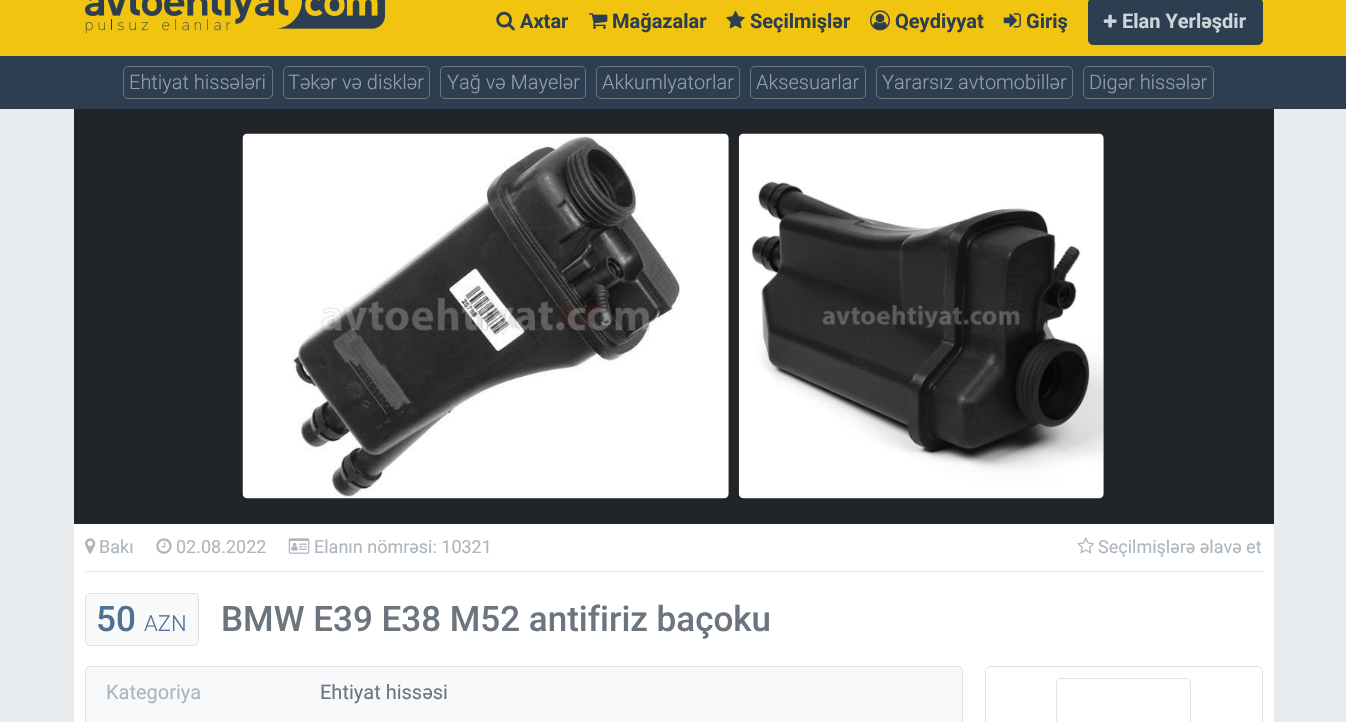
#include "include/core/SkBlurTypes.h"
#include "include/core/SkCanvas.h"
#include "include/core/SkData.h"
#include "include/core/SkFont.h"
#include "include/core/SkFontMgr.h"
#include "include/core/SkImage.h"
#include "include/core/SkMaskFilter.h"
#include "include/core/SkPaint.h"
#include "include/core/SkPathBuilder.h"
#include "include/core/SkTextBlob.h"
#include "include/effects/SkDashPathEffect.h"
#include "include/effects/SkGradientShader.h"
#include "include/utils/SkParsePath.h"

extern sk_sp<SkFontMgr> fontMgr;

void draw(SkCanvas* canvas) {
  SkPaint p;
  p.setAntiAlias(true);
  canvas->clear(SkColorSetRGB(241, 196, 15));
  canvas->drawImageRect(SkImages::DeferredFromEncodedData(SkData::MakeFromFileName("images/1.png")), SkRect::MakeLTRB(85, 0, 385, 34), SkSamplingOptions());
  canvas->drawImageRect(SkImages::DeferredFromEncodedData(SkData::MakeFromFileName("images/2.png")), SkRect::MakeLTRB(496, 11, 515, 31), SkSamplingOptions());
  canvas->drawImageRect(SkImages::DeferredFromEncodedData(SkData::MakeFromFileName("images/3.png")), SkRect::MakeLTRB(588, 13, 608, 29), SkSamplingOptions());
  canvas->drawImageRect(SkImages::DeferredFromEncodedData(SkData::MakeFromFileName("images/4.png")), SkRect::MakeLTRB(726, 10, 745, 29), SkSamplingOptions());
  canvas->drawImageRect(SkImages::DeferredFromEncodedData(SkData::MakeFromFileName("images/5.png")), SkRect::MakeLTRB(870, 10, 890, 31), SkSamplingOptions());
  canvas->drawImageRect(SkImages::DeferredFromEncodedData(SkData::MakeFromFileName("images/6.png")), SkRect::MakeLTRB(1003, 13, 1021, 28), SkSamplingOptions());
  p.setColor(SkColorSetRGB(44, 62, 80));
  canvas->drawRoundRect(SkRect::MakeLTRB(1088.5f, -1.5f, 1262.5f, 44.5f), 4.5f, 4.5f, p);
  p.setStyle(SkPaint::kStroke_Style);
  p.setStrokeWidth(1);
  canvas->drawRoundRect(SkRect::MakeLTRB(1088.5f, -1.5f, 1262.5f, 44.5f), 4.5f, 4.5f, p);
  canvas->drawImageRect(SkImages::DeferredFromEncodedData(SkData::MakeFromFileName("images/7.png")), SkRect::MakeLTRB(1103, 14, 1117, 28), SkSamplingOptions());
  p.setStyle(SkPaint::kFill_Style);
  canvas->drawRect(SkRect::MakeLTRB(0, 56, 1346, 109), p);
  p.setStyle(SkPaint::kStroke_Style);
  p.setColor(SkColorSetRGB(108, 117, 125));
  canvas->drawRoundRect(SkRect::MakeLTRB(123.5f, 66.5f, 272.5f, 98.5f), 4.5f, 4.5f, p);
  canvas->drawRoundRect(SkRect::MakeLTRB(283.5f, 66.5f, 429.5f, 98.5f), 4.5f, 4.5f, p);
  canvas->drawRoundRect(SkRect::MakeLTRB(440.5f, 66.5f, 585.5f, 98.5f), 4.5f, 4.5f, p);
  canvas->drawRoundRect(SkRect::MakeLTRB(596.5f, 66.5f, 739.5f, 98.5f), 4.5f, 4.5f, p);
  canvas->drawRoundRect(SkRect::MakeLTRB(750.5f, 66.5f, 865.5f, 98.5f), 4.5f, 4.5f, p);
  canvas->drawRoundRect(SkRect::MakeLTRB(876.5f, 66.5f, 1072.5f, 98.5f), 4.5f, 4.5f, p);
  canvas->drawRoundRect(SkRect::MakeLTRB(1083.5f, 66.5f, 1213.5f, 98.5f), 4.5f, 4.5f, p);
  p.setStyle(SkPaint::kFill_Style);
  p.setColor(SkColorSetRGB(233, 236, 239));
  canvas->drawRect(SkRect::MakeLTRB(0, 109, 1346, 722), p);
  p.setColor(SkColorSetRGB(33, 37, 41));
  canvas->drawRect(SkRect::MakeLTRB(74, 109, 1274, 524), p);
  canvas->drawImageRect(SkImages::DeferredFromEncodedData(SkData::MakeFromFileName("images/8.png")), SkRect::MakeLTRB(242, 133, 729, 499), SkSamplingOptions());
  canvas->drawImageRect(SkImages::DeferredFromEncodedData(SkData::MakeFromFileName("images/9.png")), SkRect::MakeLTRB(738, 133, 1104, 499), SkSamplingOptions());
  p.setColor(SK_ColorWHITE);
  canvas->drawRect(SkRect::MakeLTRB(74, 524, 1274, 722), p);
  canvas->drawImageRect(SkImages::DeferredFromEncodedData(SkData::MakeFromFileName("images/10.png")), SkRect::MakeLTRB(85, 538, 96, 554), SkSamplingOptions());
  canvas->drawImageRect(SkImages::DeferredFromEncodedData(SkData::MakeFromFileName("images/11.png")), SkRect::MakeLTRB(156, 538, 172, 554), SkSamplingOptions());
  canvas->drawImageRect(SkImages::DeferredFromEncodedData(SkData::MakeFromFileName("images/12.png")), SkRect::MakeLTRB(288, 538, 310, 554), SkSamplingOptions());
  canvas->drawImageRect(SkImages::DeferredFromEncodedData(SkData::MakeFromFileName("images/13.png")), SkRect::MakeLTRB(1077, 537, 1095, 554), SkSamplingOptions());
  p.setColor(SkColorSetRGB(230, 230, 230));
  canvas->drawRect(SkRect::MakeLTRB(85, 571, 1263, 572), p);
  p.setColor(SkColorSetRGB(248, 249, 250));
  canvas->drawRoundRect(SkRect::MakeLTRB(85.5f, 593.5f, 198.5f, 645.5f), 4.5f, 4.5f, p);
  p.setStyle(SkPaint::kStroke_Style);
  p.setColor(SkColorSetRGB(222, 226, 230));
  canvas->drawRoundRect(SkRect::MakeLTRB(85.5f, 593.5f, 198.5f, 645.5f), 4.5f, 4.5f, p);
  p.setStyle(SkPaint::kFill_Style);
  p.setColor(SkColorSetRGB(248, 249, 250));
  canvas->drawRoundRect(SkRect::MakeLTRB(85.5f, 666.5f, 962.5f, 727.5f), 4.5f, 4.5f, p);
  p.setStyle(SkPaint::kStroke_Style);
  p.setColor(SkColorSetRGB(222, 226, 230));
  canvas->drawRoundRect(SkRect::MakeLTRB(85.5f, 666.5f, 962.5f, 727.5f), 4.5f, 4.5f, p);
  p.setColor(SkColorSetRGB(223, 223, 223));
  canvas->drawRoundRect(SkRect::MakeLTRB(985.5f, 666.5f, 1262.5f, 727.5f), 4.5f, 4.5f, p);
  p.setColor(SkColorSetRGB(222, 226, 230));
  canvas->drawRoundRect(SkRect::MakeLTRB(1056.5f, 678.5f, 1190.5f, 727.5f), 4.5f, 4.5f, p);
  SkFont font1(fontMgr->matchFamilyStyle("Roboto", SkFontStyle::Bold()), 20);
  font1.setSubpixel(true);
  p.setStyle(SkPaint::kFill_Style);
  p.setColor(SkColorSetRGB(44, 62, 80));
  canvas->drawString("Axtar", 520, 28, font1, p);
  canvas->drawString("Mağazalar", 612, 28, font1, p);
  canvas->drawString("Seçilmişlər", 750, 28, font1, p);
  canvas->drawString("Qeydiyyat", 895, 28, font1, p);
  canvas->drawString("Giriş", 1026, 28, font1, p);
  p.setColor(SkColorSetRGB(206, 212, 218));
  canvas->drawString("Elan Yerləşdir", 1122, 28, font1, p);
  SkFont font2(fontMgr->matchFamilyStyle("Roboto", SkFontStyle(300, SkFontStyle::kNormal_Width, SkFontStyle::kUpright_Slant)), 20);
  font2.setSubpixel(true);
  p.setColor(SkColorSetRGB(150, 159, 168));
  canvas->drawString("Ehtiyat hissələri", 129, 89, font2, p);
  canvas->drawString("Təkər və disklər", 288, 89, font2, p);
  canvas->drawString("Yağ və Mayelər", 447, 89, font2, p);
  canvas->drawString("Akkumlyatorlar", 602, 89, font2, p);
  canvas->drawString("Aksesuarlar", 756, 89, font2, p);
  canvas->drawString("Yararsız avtomobillər", 882, 89, font2, p);
  canvas->drawString("Digər hissələr", 1089, 89, font2, p);
  SkFont font3(fontMgr->matchFamilyStyle("Roboto", SkFontStyle::Normal()), 18);
  font3.setSubpixel(true);
  p.setColor(SkColorSetRGB(173, 181, 189));
  canvas->drawString("Bakı", 99, 553, font3, p);
  canvas->drawString("02.08.2022", 176, 553, font3, p);
  canvas->drawString("Elanın nömrəsi: 10321", 314, 553, font3, p);
  canvas->drawString("Seçilmişlərə əlavə et", 1098, 553, font3, p);
  SkFont font4(fontMgr->matchFamilyStyle("Roboto", SkFontStyle(500, SkFontStyle::kNormal_Width, SkFontStyle::kUpright_Slant)), 35);
  font4.setSubpixel(true);
  p.setColor(SkColorSetRGB(80, 113, 146));
  canvas->drawString("50", 96, 631, font4, p);
  SkFont font5(fontMgr->matchFamilyStyle("Roboto", SkFontStyle(300, SkFontStyle::kNormal_Width, SkFontStyle::kUpright_Slant)), 22);
  font5.setSubpixel(true);
  canvas->drawString("AZN", 144, 631, font5, p);
  p.setColor(SkColorSetRGB(108, 117, 125));
  canvas->drawString("BMW E39 E38 M52 antifiriz baçoku", 221, 631, font4, p);
  SkFont font6(fontMgr->matchFamilyStyle("Roboto", SkFontStyle::Normal()), 20);
  font6.setSubpixel(true);
  p.setColor(SkColorSetRGB(173, 181, 189));
  canvas->drawString("Kategoriya", 106, 699, font6, p);
  p.setColor(SkColorSetRGB(108, 117, 125));
  canvas->drawString("Ehtiyat hissəsi", 320, 699, font6, p);
}
